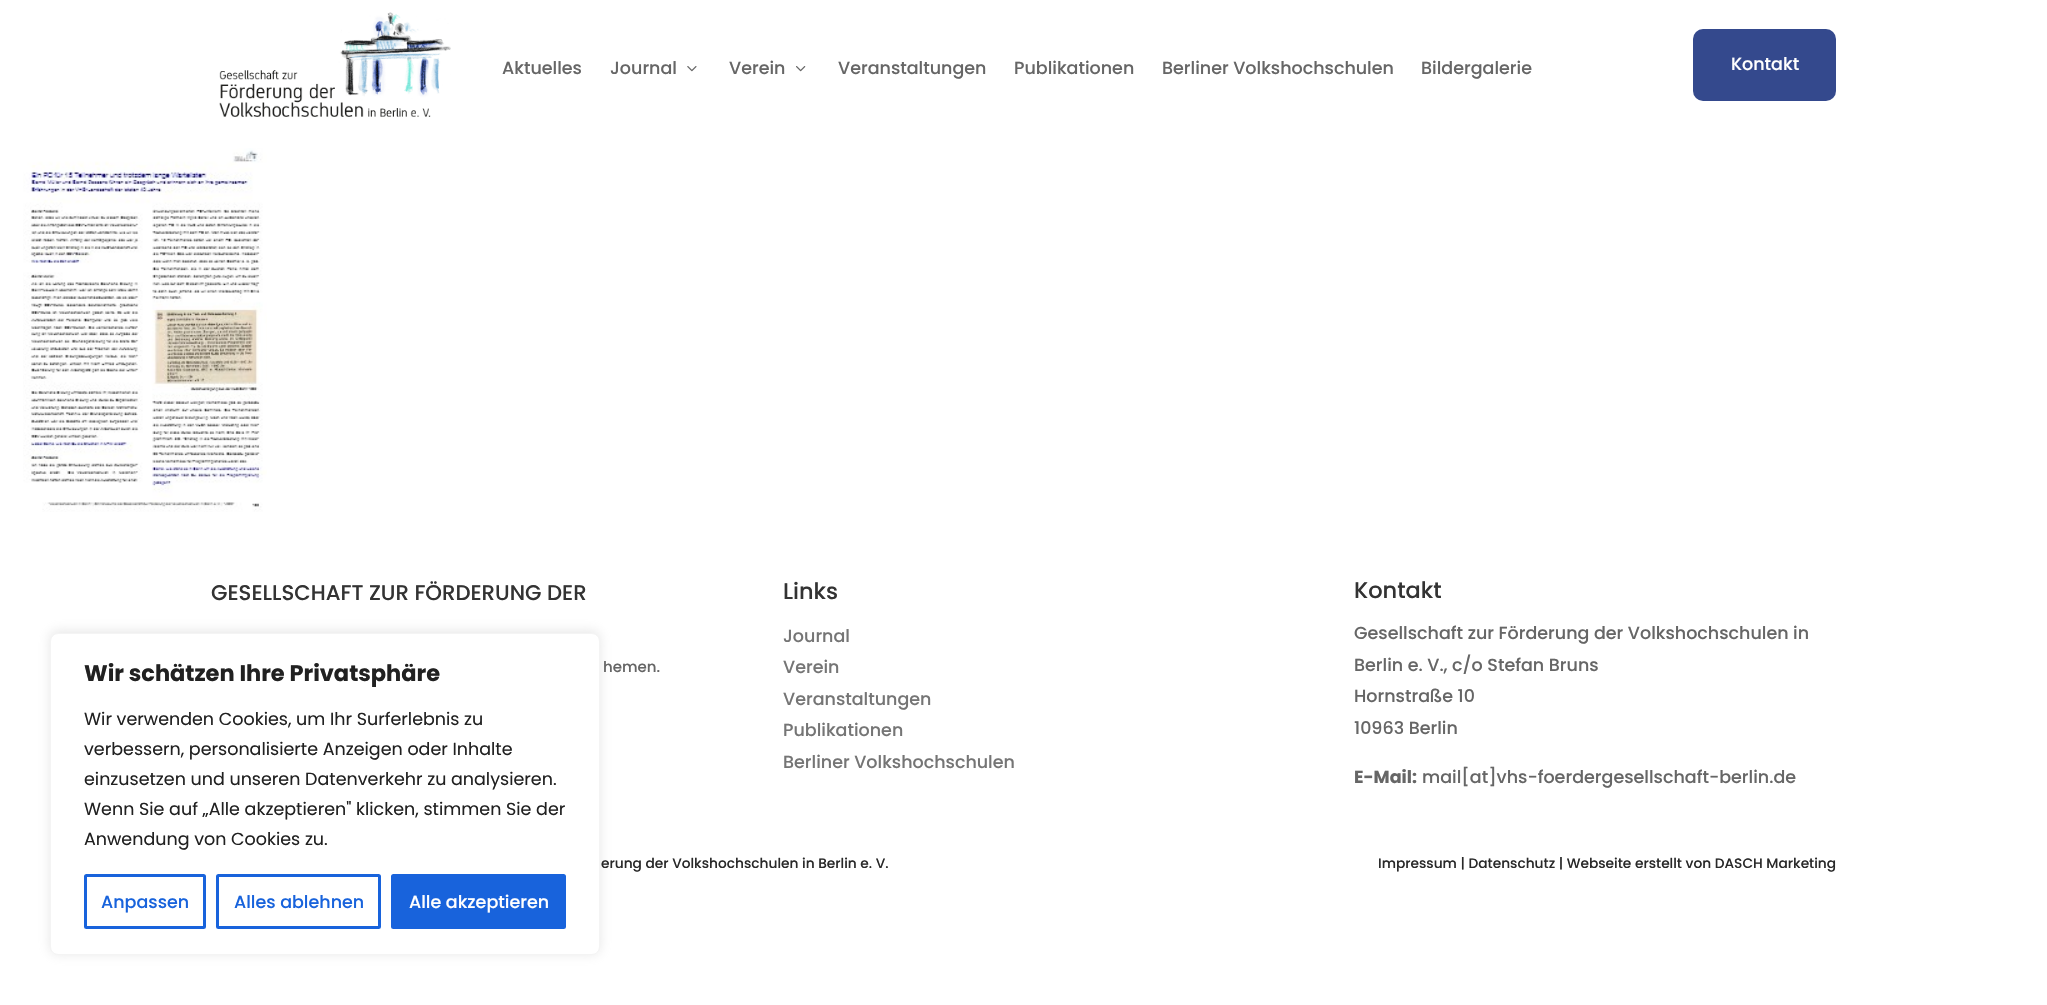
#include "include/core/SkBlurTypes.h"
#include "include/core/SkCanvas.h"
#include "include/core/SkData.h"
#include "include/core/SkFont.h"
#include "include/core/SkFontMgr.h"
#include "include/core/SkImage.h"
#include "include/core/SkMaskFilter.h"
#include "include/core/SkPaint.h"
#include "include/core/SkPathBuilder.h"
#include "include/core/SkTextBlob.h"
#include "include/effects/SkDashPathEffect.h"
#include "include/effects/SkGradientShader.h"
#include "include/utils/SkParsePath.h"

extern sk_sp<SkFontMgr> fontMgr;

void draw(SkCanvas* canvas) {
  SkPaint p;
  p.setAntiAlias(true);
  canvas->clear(SK_ColorWHITE);
  canvas->drawImageRect(SkImages::DeferredFromEncodedData(SkData::MakeFromFileName("images/1.png")), SkRect::MakeLTRB(219, 12, 451, 117), SkSamplingOptions());
  canvas->drawImageRect(SkImages::DeferredFromEncodedData(SkData::MakeFromFileName("images/2.png")), SkRect::MakeLTRB(687, 66, 697, 72), SkSamplingOptions());
  canvas->drawImageRect(SkImages::DeferredFromEncodedData(SkData::MakeFromFileName("images/3.png")), SkRect::MakeLTRB(796, 66, 806, 72), SkSamplingOptions());
  p.setColor(SkColorSetRGB(52, 73, 141));
  canvas->drawRoundRect(SkRect::MakeLTRB(1693, 29, 1836, 101), 10, 10, p);
  canvas->drawImageRect(SkImages::DeferredFromEncodedData(SkData::MakeFromFileName("images/4.png")), SkRect::MakeLTRB(23, 148, 267, 512), SkSamplingOptions());
  p.setColor(SkColorSetARGB(77, 172, 171, 171));
  p.setMaskFilter(SkMaskFilter::MakeBlur(kNormal_SkBlurStyle, 6));
  canvas->drawRoundRect(SkRect::MakeLTRB(50, 631, 600, 954), 8, 8, p);
  p.setMaskFilter(nullptr);
  p.setColor(SK_ColorWHITE);
  canvas->drawRoundRect(SkRect::MakeLTRB(50.5f, 633.5f, 599.5f, 954.5f), 7.5f, 7.5f, p);
  p.setStyle(SkPaint::kStroke_Style);
  p.setStrokeWidth(1);
  p.setColor(SkColorSetRGB(244, 244, 244));
  canvas->drawRoundRect(SkRect::MakeLTRB(50.5f, 633.5f, 599.5f, 954.5f), 7.5f, 7.5f, p);
  p.setStrokeWidth(3);
  p.setColor(SkColorSetRGB(24, 99, 220));
  canvas->drawRoundRect(SkRect::MakeLTRB(85.5f, 875.5f, 204.5f, 927.5f), 1, 1, p);
  canvas->drawRoundRect(SkRect::MakeLTRB(217.5f, 875.5f, 379.5f, 927.5f), 1, 1, p);
  p.setStyle(SkPaint::kFill_Style);
  canvas->drawRoundRect(SkRect::MakeLTRB(392.5f, 875.5f, 564.5f, 927.5f), 1, 1, p);
  p.setStyle(SkPaint::kStroke_Style);
  canvas->drawRoundRect(SkRect::MakeLTRB(392.5f, 875.5f, 564.5f, 927.5f), 1, 1, p);
  SkFont font1(fontMgr->matchFamilyStyle("Poppins", SkFontStyle(500, SkFontStyle::kNormal_Width, SkFontStyle::kUpright_Slant)), 17.5f);
  font1.setSubpixel(true);
  p.setStyle(SkPaint::kFill_Style);
  p.setColor(SkColorSetRGB(102, 102, 102));
  canvas->drawString("Aktuelles", 502, 74, font1, p);
  canvas->drawString("Journal", 610, 74, font1, p);
  canvas->drawString("Verein", 729, 74, font1, p);
  canvas->drawString("Veranstaltungen", 838, 74, font1, p);
  canvas->drawString("Publikationen", 1014, 74, font1, p);
  canvas->drawString("Berliner Volkshochschulen", 1162, 74, font1, p);
  canvas->drawString("Bildergalerie", 1421, 74, font1, p);
  p.setColor(SK_ColorWHITE);
  canvas->drawString("Kontakt", 1731, 70, font1, p);
  SkFont font2(fontMgr->matchFamilyStyle("Poppins", SkFontStyle(500, SkFontStyle::kNormal_Width, SkFontStyle::kUpright_Slant)), 21.25f);
  font2.setSubpixel(true);
  p.setColor(SkColorSetRGB(51, 51, 51));
  canvas->drawString("GESELLSCHAFT ZUR FÖRDERUNG DER", 211, 600, font2, p);
  SkFont font3(fontMgr->matchFamilyStyle("Poppins", SkFontStyle(500, SkFontStyle::kNormal_Width, SkFontStyle::kUpright_Slant)), 15);
  font3.setSubpixel(true);
  p.setColor(SkColorSetRGB(102, 102, 102));
  canvas->drawString("hemen.", 603, 672, font3, p);
  SkFont font4(fontMgr->matchFamilyStyle("Poppins", SkFontStyle(500, SkFontStyle::kNormal_Width, SkFontStyle::kUpright_Slant)), 22.5f);
  font4.setSubpixel(true);
  p.setColor(SkColorSetRGB(51, 51, 51));
  canvas->drawString("Links", 783, 599, font4, p);
  p.setColor(SkColorSetRGB(117, 117, 117));
  canvas->drawString("Journal", 783, 642, font1, p);
  canvas->drawString("Verein", 783, 673, font1, p);
  canvas->drawString("Veranstaltungen", 783, 705, font1, p);
  canvas->drawString("Publikationen", 783, 736, font1, p);
  canvas->drawString("Berliner Volkshochschulen", 783, 768, font1, p);
  p.setColor(SkColorSetRGB(51, 51, 51));
  canvas->drawString("Kontakt", 1354, 598, font4, p);
  p.setColor(SkColorSetRGB(102, 102, 102));
  canvas->drawString("Gesellschaft zur Förderung der Volkshochschulen in", 1354, 639, font1, p);
  canvas->drawString("Berlin e. V., c/o Stefan Bruns", 1354, 671, font1, p);
  canvas->drawString("Hornstraße 10", 1354, 702, font1, p);
  canvas->drawString("10963 Berlin", 1354, 734, font1, p);
  SkFont font5(fontMgr->matchFamilyStyle("Poppins", SkFontStyle::Bold()), 17.5f);
  font5.setSubpixel(true);
  canvas->drawString("E-Mail:", 1354, 783, font5, p);
  canvas->drawString("mail[at]vhs-foerdergesellschaft-berlin.de", 1422, 783, font1, p);
  SkFont font6(fontMgr->matchFamilyStyle("Poppins", SkFontStyle(500, SkFontStyle::kNormal_Width, SkFontStyle::kUpright_Slant)), 13.75f);
  font6.setSubpixel(true);
  p.setColor(SkColorSetRGB(41, 41, 41));
  canvas->drawString("erung der Volkshochschulen in Berlin e. V.", 601, 868, font6, p);
  canvas->drawString("Impressum | Datenschutz | Webseite erstellt von DASCH Marketing", 1378, 868, font6, p);
  SkFont font7(fontMgr->matchFamilyStyle("Poppins", SkFontStyle::Bold()), 22.5f);
  font7.setSubpixel(true);
  p.setColor(SkColorSetRGB(33, 33, 33));
  canvas->drawString("Wir schätzen Ihre Privatsphäre", 84, 681, font7, p);
  SkFont font8(fontMgr->matchFamilyStyle("Poppins", SkFontStyle::Normal()), 17.5f);
  font8.setSubpixel(true);
  canvas->drawString("Wir verwenden Cookies, um Ihr Surferlebnis zu", 84, 725, font8, p);
  canvas->drawString("verbessern, personalisierte Anzeigen oder Inhalte", 84, 755, font8, p);
  canvas->drawString("einzusetzen und unseren Datenverkehr zu analysieren.", 84, 785, font8, p);
  canvas->drawString("Wenn Sie auf „Alle akzeptieren\" klicken, stimmen Sie der", 84, 815, font8, p);
  canvas->drawString("Anwendung von Cookies zu.", 84, 845, font8, p);
  p.setColor(SkColorSetRGB(24, 99, 220));
  canvas->drawString("Anpassen", 101, 908, font1, p);
  canvas->drawString("Alles ablehnen", 234, 908, font1, p);
  p.setColor(SK_ColorWHITE);
  canvas->drawString("Alle akzeptieren", 409, 908, font1, p);
}
